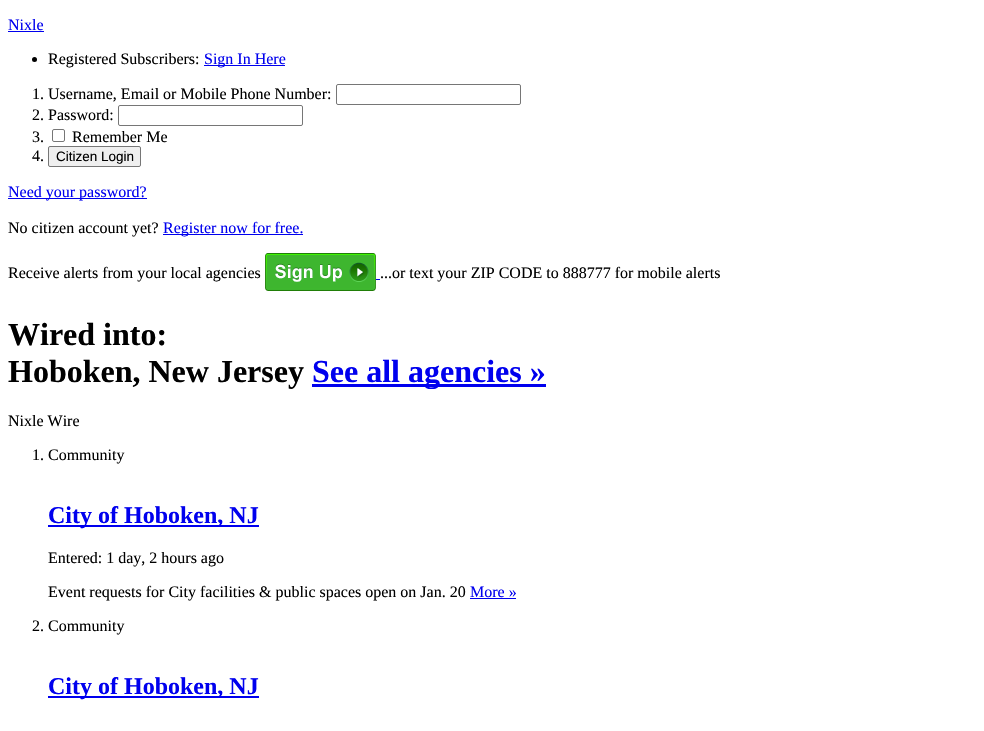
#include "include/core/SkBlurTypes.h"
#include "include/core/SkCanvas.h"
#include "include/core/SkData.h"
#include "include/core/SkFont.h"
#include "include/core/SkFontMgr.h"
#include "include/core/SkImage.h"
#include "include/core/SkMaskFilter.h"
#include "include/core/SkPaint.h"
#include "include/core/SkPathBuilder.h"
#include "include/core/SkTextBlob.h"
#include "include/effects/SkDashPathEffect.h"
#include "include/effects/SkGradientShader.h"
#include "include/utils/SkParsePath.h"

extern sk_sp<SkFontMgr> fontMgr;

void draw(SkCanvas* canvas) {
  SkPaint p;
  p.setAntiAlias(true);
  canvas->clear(SK_ColorWHITE);
  p.setColor(SkColorSetRGB(0, 0, 238));
  canvas->drawRect(SkRect::MakeLTRB(8, 31, 44, 32), p);
  p.setColor(SK_ColorBLACK);
  canvas->drawCircle(34.5f, 59.5f, 2.5f, p);
  p.setColor(SkColorSetRGB(0, 0, 238));
  canvas->drawRect(SkRect::MakeLTRB(204, 65, 285, 66), p);
  p.setStyle(SkPaint::kStroke_Style);
  p.setStrokeWidth(1);
  p.setColor(SkColorSetRGB(118, 118, 118));
  canvas->drawRoundRect(SkRect::MakeLTRB(336.5f, 84.5f, 520.5f, 104.5f), 1.5f, 1.5f, p);
  canvas->drawRoundRect(SkRect::MakeLTRB(118.5f, 105.5f, 302.5f, 125.5f), 1.5f, 1.5f, p);
  canvas->drawRoundRect(SkRect::MakeLTRB(52.5f, 129.5f, 64.5f, 141.5f), 1.5f, 1.5f, p);
  p.setStyle(SkPaint::kFill_Style);
  p.setColor(SkColorSetRGB(239, 239, 239));
  canvas->drawRoundRect(SkRect::MakeLTRB(48.5f, 146.5f, 140.5f, 166.5f), 1.5f, 1.5f, p);
  p.setStyle(SkPaint::kStroke_Style);
  p.setColor(SkColorSetRGB(118, 118, 118));
  canvas->drawRoundRect(SkRect::MakeLTRB(48.5f, 146.5f, 140.5f, 166.5f), 1.5f, 1.5f, p);
  p.setStyle(SkPaint::kFill_Style);
  p.setColor(SkColorSetRGB(0, 0, 238));
  canvas->drawRect(SkRect::MakeLTRB(8, 198, 147, 199), p);
  canvas->drawRect(SkRect::MakeLTRB(163, 234, 303, 235), p);
  canvas->drawImageRect(SkImages::DeferredFromEncodedData(SkData::MakeFromFileName("images/1.png")), SkRect::MakeLTRB(265, 253, 376, 291), SkSamplingOptions());
  canvas->drawRect(SkRect::MakeLTRB(376, 279, 380, 280), p);
  canvas->drawRect(SkRect::MakeLTRB(312, 384, 546, 387), p);
  canvas->drawRect(SkRect::MakeLTRB(48, 525, 259, 527), p);
  canvas->drawRect(SkRect::MakeLTRB(470, 598, 516, 599), p);
  canvas->drawRect(SkRect::MakeLTRB(48, 696, 259, 698), p);
  SkFont font1(fontMgr->matchFamilyStyle("Liberation Serif", SkFontStyle::Normal()), 16);
  font1.setSubpixel(true);
  canvas->drawString("Nixle", 8, 30, font1, p);
  p.setColor(SK_ColorBLACK);
  canvas->drawString("Registered Subscribers:", 48, 64, font1, p);
  p.setColor(SkColorSetRGB(0, 0, 238));
  canvas->drawString("Sign In Here", 204, 64, font1, p);
  p.setColor(SK_ColorBLACK);
  canvas->drawString("1. Username, Email or Mobile Phone Number:", 32, 99, font1, p);
  canvas->drawString("2. Password:", 32, 120, font1, p);
  canvas->drawString("3.", 32, 142, font1, p);
  canvas->drawString("Remember Me", 72, 142, font1, p);
  canvas->drawString("4.", 32, 161, font1, p);
  SkFont font2(fontMgr->matchFamilyStyle("Liberation Sans", SkFontStyle::Normal()), 13.5f);
  font2.setSubpixel(true);
  canvas->drawString("Citizen Login", 56, 161, font2, p);
  p.setColor(SkColorSetRGB(0, 0, 238));
  canvas->drawString("Need your password?", 8, 197, font1, p);
  p.setColor(SK_ColorBLACK);
  canvas->drawString("No citizen account yet?", 8, 233, font1, p);
  p.setColor(SkColorSetRGB(0, 0, 238));
  canvas->drawString("Register now for free.", 163, 233, font1, p);
  p.setColor(SK_ColorBLACK);
  canvas->drawString("Receive alerts from your local agencies", 8, 278, font1, p);
  canvas->drawString("...or text your ZIP CODE to 888777 for mobile alerts", 380, 278, font1, p);
  SkFont font3(fontMgr->matchFamilyStyle("Liberation Serif", SkFontStyle::Bold()), 32);
  font3.setSubpixel(true);
  canvas->drawString("Wired into:", 8, 345, font3, p);
  canvas->drawString("Hoboken, New Jersey", 8, 382, font3, p);
  p.setColor(SkColorSetRGB(0, 0, 238));
  canvas->drawString("See all agencies »", 312, 382, font3, p);
  p.setColor(SK_ColorBLACK);
  canvas->drawString("Nixle Wire", 8, 426, font1, p);
  canvas->drawString("1. Community", 32, 460, font1, p);
  SkFont font4(fontMgr->matchFamilyStyle("Liberation Serif", SkFontStyle::Bold()), 24);
  font4.setSubpixel(true);
  p.setColor(SkColorSetRGB(0, 0, 238));
  canvas->drawString("City of Hoboken, NJ", 48, 523, font4, p);
  p.setColor(SK_ColorBLACK);
  canvas->drawString("Entered: 1 day, 2 hours ago", 48, 563, font1, p);
  canvas->drawString("Event requests for City facilities & public spaces open on Jan. 20", 48, 597, font1, p);
  p.setColor(SkColorSetRGB(0, 0, 238));
  canvas->drawString("More »", 470, 597, font1, p);
  p.setColor(SK_ColorBLACK);
  canvas->drawString("2. Community", 32, 631, font1, p);
  p.setColor(SkColorSetRGB(0, 0, 238));
  canvas->drawString("City of Hoboken, NJ", 48, 694, font4, p);
}
